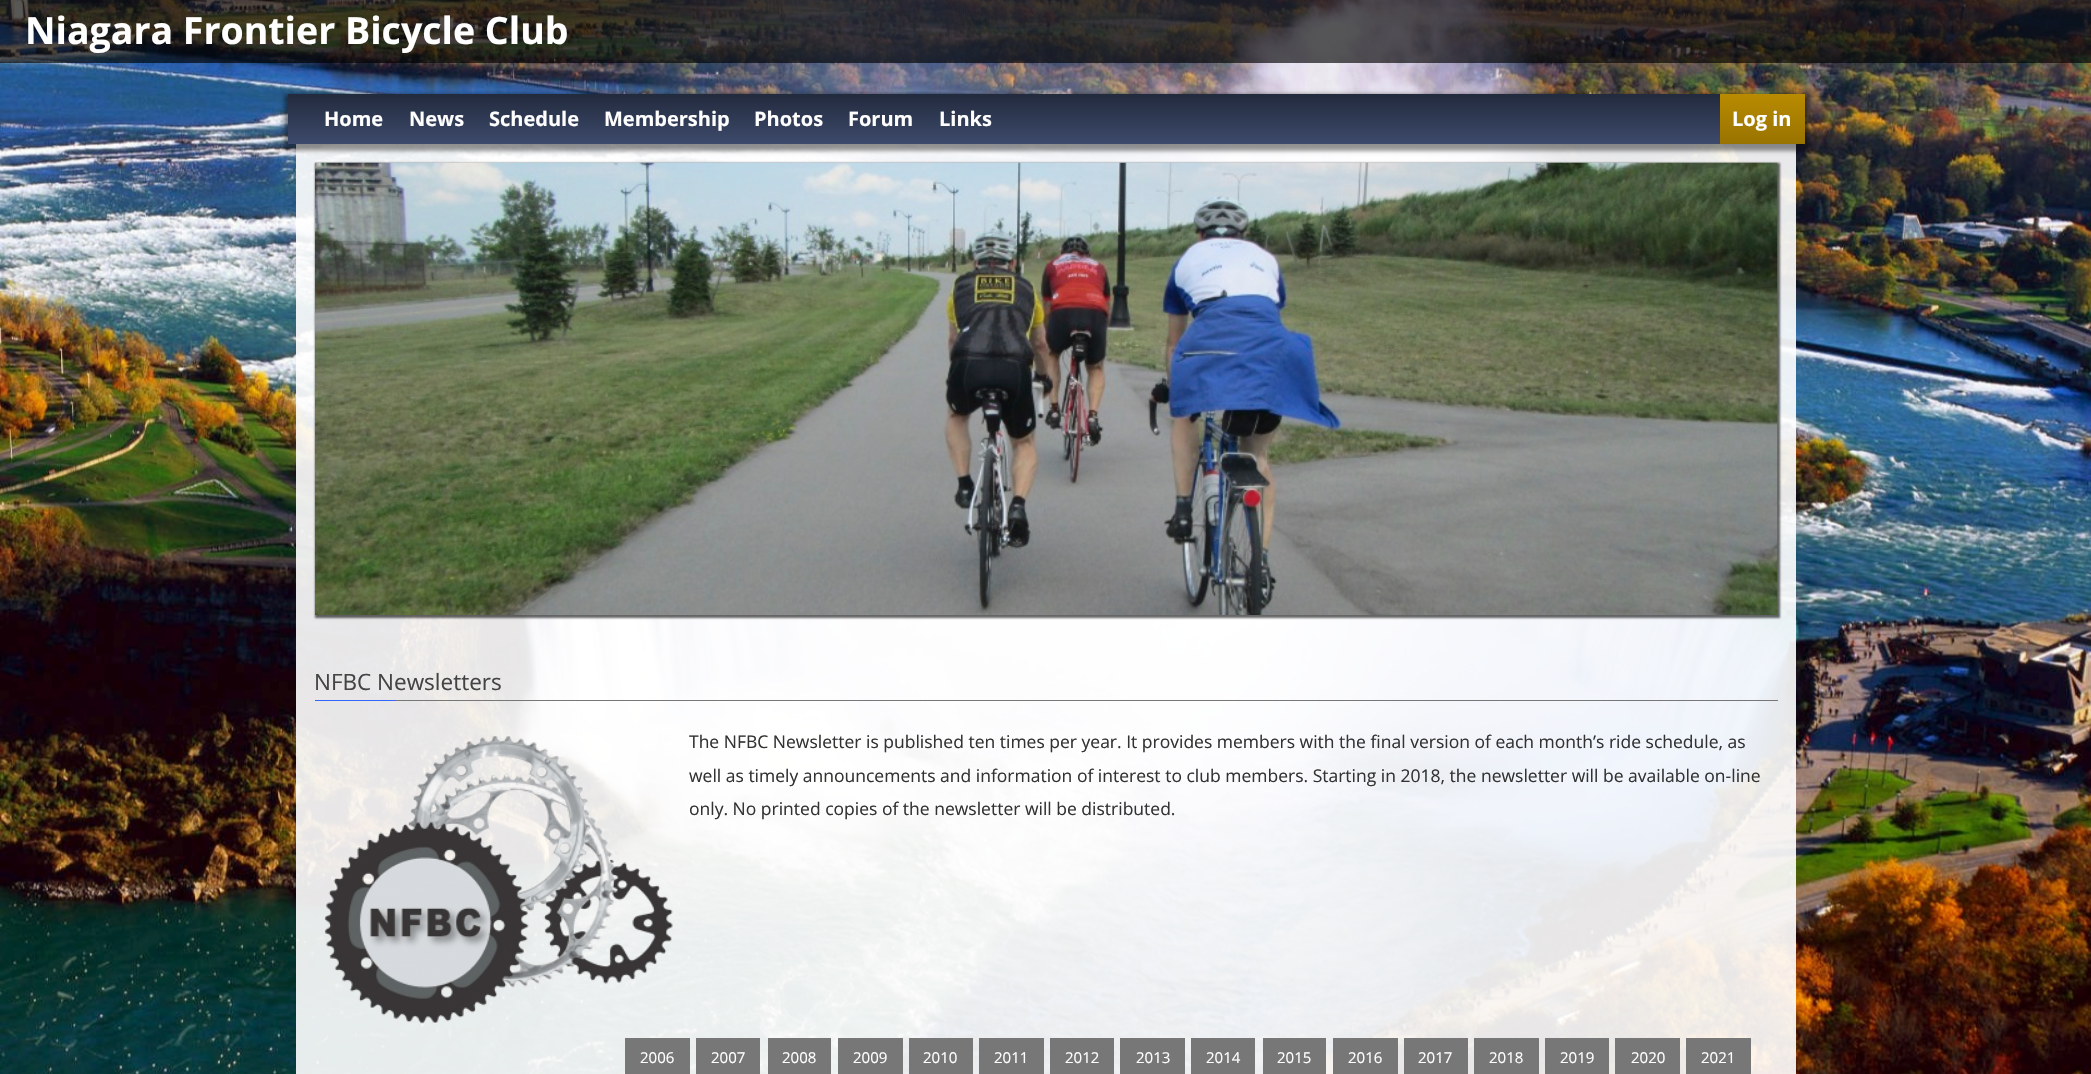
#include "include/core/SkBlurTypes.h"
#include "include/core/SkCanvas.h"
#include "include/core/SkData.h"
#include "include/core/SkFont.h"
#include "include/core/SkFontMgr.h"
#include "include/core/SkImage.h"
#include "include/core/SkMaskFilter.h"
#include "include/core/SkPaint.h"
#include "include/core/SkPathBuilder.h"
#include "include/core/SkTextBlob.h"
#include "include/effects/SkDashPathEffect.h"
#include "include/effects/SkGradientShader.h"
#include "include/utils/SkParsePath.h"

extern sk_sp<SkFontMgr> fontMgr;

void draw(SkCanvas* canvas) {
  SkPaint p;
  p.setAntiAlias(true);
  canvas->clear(SK_ColorWHITE);
  canvas->drawImageRect(SkImages::DeferredFromEncodedData(SkData::MakeFromFileName("images/1.png")), SkRect::MakeLTRB(0, 0, 2091, 1074), SkSamplingOptions());
  p.setColor(SkColorSetARGB(166, 0, 0, 0));
  canvas->drawRect(SkRect::MakeLTRB(0, 0, 2091, 63), p);
  p.setColor(SkColorSetARGB(230, 255, 255, 255));
  canvas->drawRect(SkRect::MakeLTRB(296, 144, 1796, 1074), p);
  p.setColor(SkColorSetARGB(102, 0, 0, 0));
  p.setMaskFilter(SkMaskFilter::MakeBlur(kNormal_SkBlurStyle, 2));
  canvas->drawRect(SkRect::MakeLTRB(284, 94, 1809, 151), p);
  p.setMaskFilter(nullptr);
  p.setColor(SkColorSetARGB(18, 0, 0, 0));
  p.setMaskFilter(SkMaskFilter::MakeBlur(kNormal_SkBlurStyle, 2.5f));
  canvas->drawRect(SkRect::MakeLTRB(288, 95, 1805, 145), p);
  p.setMaskFilter(nullptr);
  {
    const SkColor colors[] = {SkColorSetRGB(34, 42, 61), SkColorSetRGB(61, 74, 107)};
    const float stops[] = {0, 1};
    const SkPoint ends[] = {{1046, 94}, {1046, 144}};
    p.setShader(SkGradientShader::MakeLinear(ends, colors, stops, 2, SkTileMode::kClamp));
    p.setAlpha(255);
  }
  canvas->drawRect(SkRect::MakeLTRB(288, 94, 1720, 144), p);
  {
    const SkColor colors[] = {SkColorSetRGB(185, 139, 1), SkColorSetRGB(153, 115, 1)};
    const float stops[] = {0, 1};
    const SkPoint ends[] = {{1763, 94}, {1763, 144}};
    p.setShader(SkGradientShader::MakeLinear(ends, colors, stops, 2, SkTileMode::kClamp));
    p.setAlpha(255);
  }
  canvas->drawRect(SkRect::MakeLTRB(1720, 94, 1805, 144), p);
  p.setShader(nullptr);
  p.setColor(SkColorSetARGB(153, 0, 0, 0));
  p.setMaskFilter(SkMaskFilter::MakeBlur(kNormal_SkBlurStyle, 1));
  canvas->drawRect(SkRect::MakeLTRB(315, 163, 1780, 618), p);
  p.setMaskFilter(nullptr);
  canvas->drawImageRect(SkImages::DeferredFromEncodedData(SkData::MakeFromFileName("images/2.png")), SkRect::MakeLTRB(315, 162, 1778, 615), SkSamplingOptions());
  p.setColor(SkColorSetRGB(119, 119, 119));
  canvas->drawRect(SkRect::MakeLTRB(396, 700, 1778, 701), p);
  p.setColor(SkColorSetRGB(51, 102, 255));
  canvas->drawRect(SkRect::MakeLTRB(315, 700, 396, 701), p);
  canvas->drawImageRect(SkImages::DeferredFromEncodedData(SkData::MakeFromFileName("images/3.png")), SkRect::MakeLTRB(324, 735, 673, 1024), SkSamplingOptions());
  p.setColor(SkColorSetRGB(119, 119, 119));
  canvas->drawRect(SkRect::MakeLTRB(625, 1038, 690, 1074), p);
  canvas->drawRect(SkRect::MakeLTRB(696, 1038, 760, 1074), p);
  canvas->drawRect(SkRect::MakeLTRB(768, 1038, 831, 1074), p);
  canvas->drawRect(SkRect::MakeLTRB(838, 1038, 903, 1074), p);
  canvas->drawRect(SkRect::MakeLTRB(909, 1038, 973, 1074), p);
  canvas->drawRect(SkRect::MakeLTRB(979, 1038, 1044, 1074), p);
  canvas->drawRect(SkRect::MakeLTRB(1050, 1038, 1114, 1074), p);
  canvas->drawRect(SkRect::MakeLTRB(1120, 1038, 1185, 1074), p);
  canvas->drawRect(SkRect::MakeLTRB(1191, 1038, 1255, 1074), p);
  canvas->drawRect(SkRect::MakeLTRB(1263, 1038, 1326, 1074), p);
  canvas->drawRect(SkRect::MakeLTRB(1333, 1038, 1398, 1074), p);
  canvas->drawRect(SkRect::MakeLTRB(1404, 1038, 1468, 1074), p);
  canvas->drawRect(SkRect::MakeLTRB(1474, 1038, 1539, 1074), p);
  canvas->drawRect(SkRect::MakeLTRB(1545, 1038, 1609, 1074), p);
  canvas->drawRect(SkRect::MakeLTRB(1615, 1038, 1680, 1074), p);
  canvas->drawRect(SkRect::MakeLTRB(1686, 1038, 1751, 1074), p);
  SkFont font1(fontMgr->matchFamilyStyle("Open Sans", SkFontStyle::Bold()), 37.5f);
  font1.setSubpixel(true);
  p.setColor(SK_ColorWHITE);
  canvas->drawString("Niagara Frontier Bicycle Club", 25, 44, font1, p);
  SkFont font2(fontMgr->matchFamilyStyle("Open Sans", SkFontStyle::Bold()), 20);
  font2.setSubpixel(true);
  canvas->drawString("Home", 324, 126, font2, p);
  canvas->drawString("News", 409, 126, font2, p);
  canvas->drawString("Schedule", 489, 126, font2, p);
  canvas->drawString("Membership", 604, 126, font2, p);
  canvas->drawString("Photos", 754, 126, font2, p);
  canvas->drawString("Forum", 848, 126, font2, p);
  canvas->drawString("Links", 939, 126, font2, p);
  canvas->drawString("Log in", 1732, 126, font2, p);
  SkFont font3(fontMgr->matchFamilyStyle("Open Sans", SkFontStyle::Normal()), 22.5f);
  font3.setSubpixel(true);
  p.setColor(SkColorSetRGB(68, 68, 68));
  canvas->drawString("NFBC Newsletters", 314, 690, font3, p);
  SkFont font4(fontMgr->matchFamilyStyle("Open Sans", SkFontStyle::Normal()), 17.5f);
  font4.setSubpixel(true);
  p.setColor(SkColorSetRGB(51, 51, 51));
  canvas->drawString("The NFBC Newsletter is published ten times per year. It provides members with the final version of each month’s ride schedule, as", 689, 748, font4, p);
  canvas->drawString("well as timely announcements and information of interest to club members. Starting in 2018, the newsletter will be available on-line", 689, 782, font4, p);
  canvas->drawString("only. No printed copies of the newsletter will be distributed.", 689, 815, font4, p);
  SkFont font5(fontMgr->matchFamilyStyle("Open Sans", SkFontStyle::Normal()), 15);
  font5.setSubpixel(true);
  p.setColor(SK_ColorWHITE);
  canvas->drawString("2006", 640, 1063, font5, p);
  canvas->drawString("2007", 711, 1063, font5, p);
  canvas->drawString("2008", 782, 1063, font5, p);
  canvas->drawString("2009", 853, 1063, font5, p);
  canvas->drawString("2010", 923, 1063, font5, p);
  canvas->drawString("2011", 994, 1063, font5, p);
  canvas->drawString("2012", 1065, 1063, font5, p);
  canvas->drawString("2013", 1136, 1063, font5, p);
  canvas->drawString("2014", 1206, 1063, font5, p);
  canvas->drawString("2015", 1277, 1063, font5, p);
  canvas->drawString("2016", 1348, 1063, font5, p);
  canvas->drawString("2017", 1418, 1063, font5, p);
  canvas->drawString("2018", 1489, 1063, font5, p);
  canvas->drawString("2019", 1560, 1063, font5, p);
  canvas->drawString("2020", 1631, 1063, font5, p);
  canvas->drawString("2021", 1701, 1063, font5, p);
}
